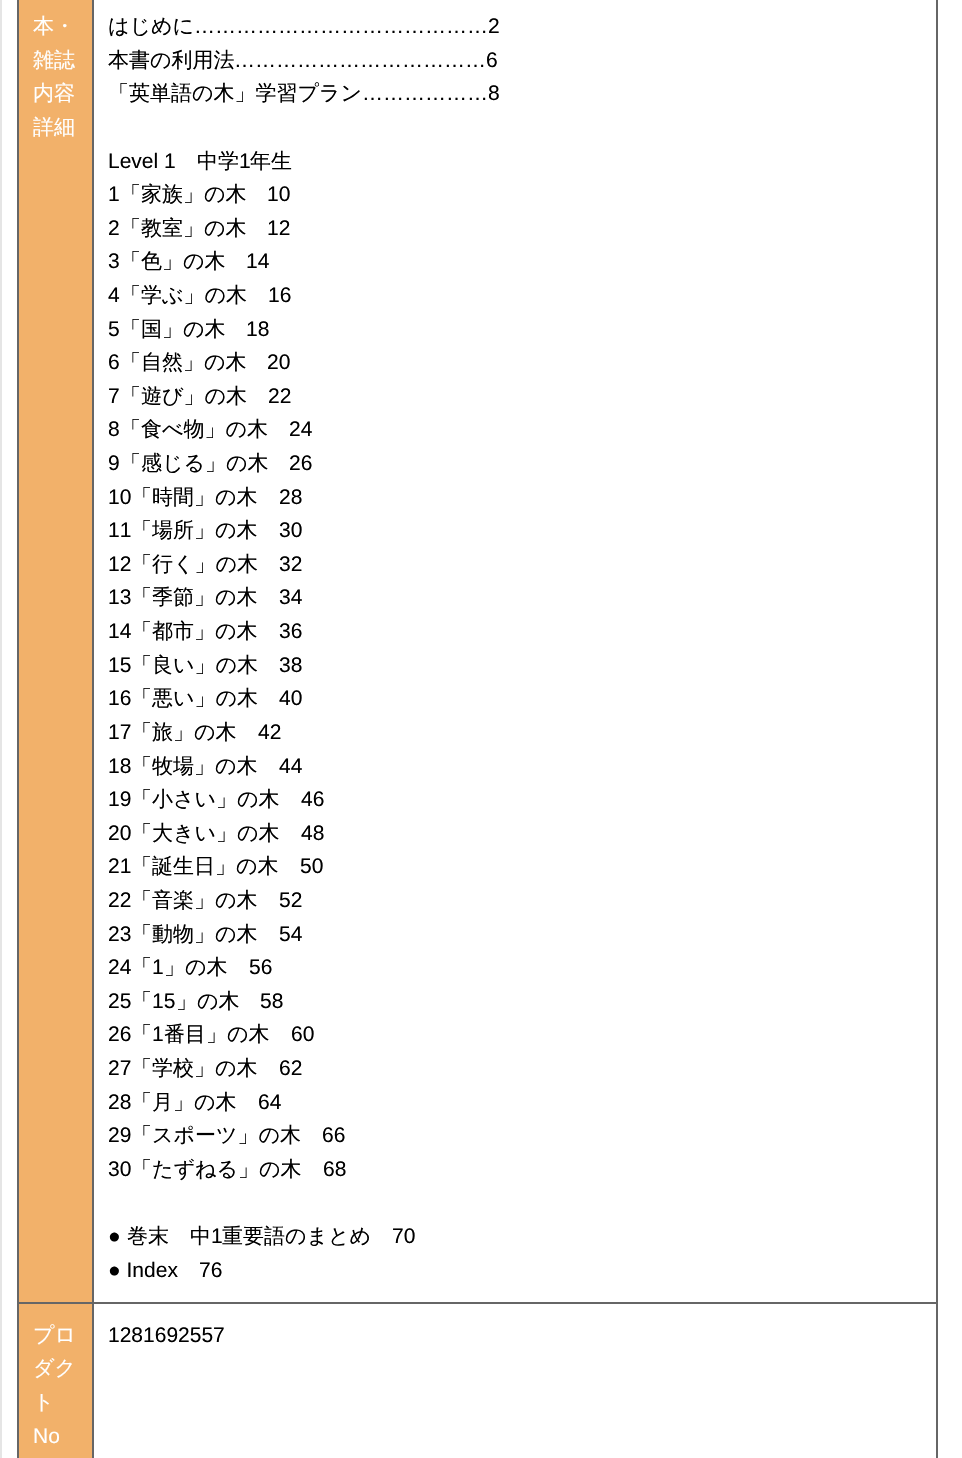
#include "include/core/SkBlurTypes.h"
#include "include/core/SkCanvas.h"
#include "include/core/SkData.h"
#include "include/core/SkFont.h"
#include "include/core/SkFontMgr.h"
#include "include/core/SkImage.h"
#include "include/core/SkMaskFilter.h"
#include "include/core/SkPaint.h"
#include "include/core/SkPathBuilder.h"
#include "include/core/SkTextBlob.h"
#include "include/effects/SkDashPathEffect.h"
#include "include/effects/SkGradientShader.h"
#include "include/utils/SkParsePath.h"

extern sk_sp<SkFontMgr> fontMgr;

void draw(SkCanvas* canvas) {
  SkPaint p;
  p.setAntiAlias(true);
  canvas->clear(SK_ColorWHITE);
  p.setColor(SkColorSetRGB(229, 229, 229));
  canvas->drawRect(SkRect::MakeLTRB(0, 0, 2, 1458), p);
  p.setColor(SkColorSetRGB(242, 177, 106));
  canvas->drawRect(SkRect::MakeLTRB(19, 0, 92, 1302), p);
  p.setColor(SkColorSetRGB(102, 102, 102));
  canvas->drawRect(SkRect::MakeLTRB(92, 1302, 938, 1304), p);
  canvas->drawRect(SkRect::MakeLTRB(92, 1302, 94, 1458), p);
  canvas->drawRect(SkRect::MakeLTRB(17, 1302, 93, 1304), p);
  canvas->drawRect(SkRect::MakeLTRB(92, 0, 94, 1304), p);
  p.setColor(SkColorSetRGB(242, 177, 106));
  canvas->drawRect(SkRect::MakeLTRB(19, 1304, 92, 1458), p);
  p.setColor(SkColorSetRGB(102, 102, 102));
  canvas->drawRect(SkRect::MakeLTRB(17, 0, 19, 1458), p);
  canvas->drawRect(SkRect::MakeLTRB(936, 0, 938, 1458), p);
  SkFont font1(fontMgr->matchFamilyStyle("WenQuanYi Zen Hei", SkFontStyle(500, SkFontStyle::kNormal_Width, SkFontStyle::kUpright_Slant)), 21);
  font1.setSubpixel(true);
  p.setColor(SK_ColorWHITE);
  canvas->drawString("本・", 33, 33, font1, p);
  canvas->drawString("雑誌", 33, 67, font1, p);
  canvas->drawString("内容", 33, 100, font1, p);
  canvas->drawString("詳細", 33, 134, font1, p);
  p.setColor(SK_ColorBLACK);
  canvas->drawString("はじめに", 108, 33, font1, p);
  SkFont font2(fontMgr->matchFamilyStyle("Liberation Sans", SkFontStyle::Normal()), 21);
  font2.setSubpixel(true);
  canvas->drawString("……………………………………2", 194, 33, font2, p);
  canvas->drawString("本書の利用法", 108, 67, font1, p);
  canvas->drawString("………………………………6", 234, 67, font2, p);
  canvas->drawString("「英単語の木」学習プラン", 108, 100, font1, p);
  canvas->drawString("………………8", 362, 100, font2, p);
  canvas->drawString("Level 1", 108, 168, font2, p);
  canvas->drawString("中学", 197, 168, font1, p);
  canvas->drawString("1", 239, 168, font2, p);
  canvas->drawString("年生", 250, 168, font1, p);
  canvas->drawString("1", 108, 201, font2, p);
  canvas->drawString("「家族」の木", 120, 201, font1, p);
  canvas->drawString("10", 267, 201, font2, p);
  canvas->drawString("2", 108, 235, font2, p);
  canvas->drawString("「教室」の木", 120, 235, font1, p);
  canvas->drawString("12", 267, 235, font2, p);
  canvas->drawString("3", 108, 268, font2, p);
  canvas->drawString("「色」の木", 120, 268, font1, p);
  canvas->drawString("14", 246, 268, font2, p);
  canvas->drawString("4", 108, 302, font2, p);
  canvas->drawString("「学ぶ」の木", 120, 302, font1, p);
  canvas->drawString("16", 268, 302, font2, p);
  canvas->drawString("5", 108, 336, font2, p);
  canvas->drawString("「国」の木", 120, 336, font1, p);
  canvas->drawString("18", 246, 336, font2, p);
  canvas->drawString("6", 108, 369, font2, p);
  canvas->drawString("「自然」の木", 120, 369, font1, p);
  canvas->drawString("20", 267, 369, font2, p);
  canvas->drawString("7", 108, 403, font2, p);
  canvas->drawString("「遊び」の木", 120, 403, font1, p);
  canvas->drawString("22", 268, 403, font2, p);
  canvas->drawString("8", 108, 436, font2, p);
  canvas->drawString("「食べ物」の木", 120, 436, font1, p);
  canvas->drawString("24", 289, 436, font2, p);
  canvas->drawString("9", 108, 470, font2, p);
  canvas->drawString("「感じる」の木", 120, 470, font1, p);
  canvas->drawString("26", 289, 470, font2, p);
  canvas->drawString("10", 108, 504, font2, p);
  canvas->drawString("「時間」の木", 131, 504, font1, p);
  canvas->drawString("28", 279, 504, font2, p);
  canvas->drawString("11", 108, 537, font2, p);
  canvas->drawString("「場所」の木", 131, 537, font1, p);
  canvas->drawString("30", 279, 537, font2, p);
  canvas->drawString("12", 108, 571, font2, p);
  canvas->drawString("「行く」の木", 131, 571, font1, p);
  canvas->drawString("32", 279, 571, font2, p);
  canvas->drawString("13", 108, 604, font2, p);
  canvas->drawString("「季節」の木", 131, 604, font1, p);
  canvas->drawString("34", 279, 604, font2, p);
  canvas->drawString("14", 108, 638, font2, p);
  canvas->drawString("「都市」の木", 131, 638, font1, p);
  canvas->drawString("36", 279, 638, font2, p);
  canvas->drawString("15", 108, 672, font2, p);
  canvas->drawString("「良い」の木", 131, 672, font1, p);
  canvas->drawString("38", 279, 672, font2, p);
  canvas->drawString("16", 108, 705, font2, p);
  canvas->drawString("「悪い」の木", 131, 705, font1, p);
  canvas->drawString("40", 279, 705, font2, p);
  canvas->drawString("17", 108, 739, font2, p);
  canvas->drawString("「旅」の木", 131, 739, font1, p);
  canvas->drawString("42", 258, 739, font2, p);
  canvas->drawString("18", 108, 773, font2, p);
  canvas->drawString("「牧場」の木", 131, 773, font1, p);
  canvas->drawString("44", 279, 773, font2, p);
  canvas->drawString("19", 108, 806, font2, p);
  canvas->drawString("「小さい」の木", 131, 806, font1, p);
  canvas->drawString("46", 301, 806, font2, p);
  canvas->drawString("20", 108, 840, font2, p);
  canvas->drawString("「大きい」の木", 131, 840, font1, p);
  canvas->drawString("48", 301, 840, font2, p);
  canvas->drawString("21", 108, 873, font2, p);
  canvas->drawString("「誕生日」の木", 131, 873, font1, p);
  canvas->drawString("50", 300, 873, font2, p);
  canvas->drawString("22", 108, 907, font2, p);
  canvas->drawString("「音楽」の木", 131, 907, font1, p);
  canvas->drawString("52", 279, 907, font2, p);
  canvas->drawString("23", 108, 941, font2, p);
  canvas->drawString("「動物」の木", 131, 941, font1, p);
  canvas->drawString("54", 279, 941, font2, p);
  canvas->drawString("24", 108, 974, font2, p);
  canvas->drawString("「", 131, 974, font1, p);
  canvas->drawString("1", 152, 974, font2, p);
  canvas->drawString("」の木", 164, 974, font1, p);
  canvas->drawString("56", 249, 974, font2, p);
  canvas->drawString("25", 108, 1008, font2, p);
  canvas->drawString("「", 131, 1008, font1, p);
  canvas->drawString("15", 152, 1008, font2, p);
  canvas->drawString("」の木", 176, 1008, font1, p);
  canvas->drawString("58", 260, 1008, font2, p);
  canvas->drawString("26", 108, 1041, font2, p);
  canvas->drawString("「", 131, 1041, font1, p);
  canvas->drawString("1", 152, 1041, font2, p);
  canvas->drawString("番目」の木", 164, 1041, font1, p);
  canvas->drawString("60", 291, 1041, font2, p);
  canvas->drawString("27", 108, 1075, font2, p);
  canvas->drawString("「学校」の木", 131, 1075, font1, p);
  canvas->drawString("62", 279, 1075, font2, p);
  canvas->drawString("28", 108, 1109, font2, p);
  canvas->drawString("「月」の木", 131, 1109, font1, p);
  canvas->drawString("64", 258, 1109, font2, p);
  canvas->drawString("29", 108, 1142, font2, p);
  canvas->drawString("「スポーツ」の木", 131, 1142, font1, p);
  canvas->drawString("66", 322, 1142, font2, p);
  canvas->drawString("30", 108, 1176, font2, p);
  canvas->drawString("「たずねる」の木", 131, 1176, font1, p);
  canvas->drawString("68", 323, 1176, font2, p);
  canvas->drawString("●", 108, 1243, font2, p);
  canvas->drawString("巻末　中", 127, 1243, font1, p);
  canvas->drawString("1", 211, 1243, font2, p);
  canvas->drawString("重要語のまとめ", 222, 1243, font1, p);
  canvas->drawString("70", 392, 1243, font2, p);
  canvas->drawString("● Index", 108, 1277, font2, p);
  canvas->drawString("76", 199, 1277, font2, p);
  p.setColor(SK_ColorWHITE);
  canvas->drawString("プロ", 33, 1342, font1, p);
  canvas->drawString("ダク", 33, 1375, font1, p);
  canvas->drawString("ト", 33, 1409, font1, p);
  canvas->drawString("No", 33, 1443, font2, p);
  p.setColor(SK_ColorBLACK);
  canvas->drawString("1281692557", 108, 1342, font2, p);
}
